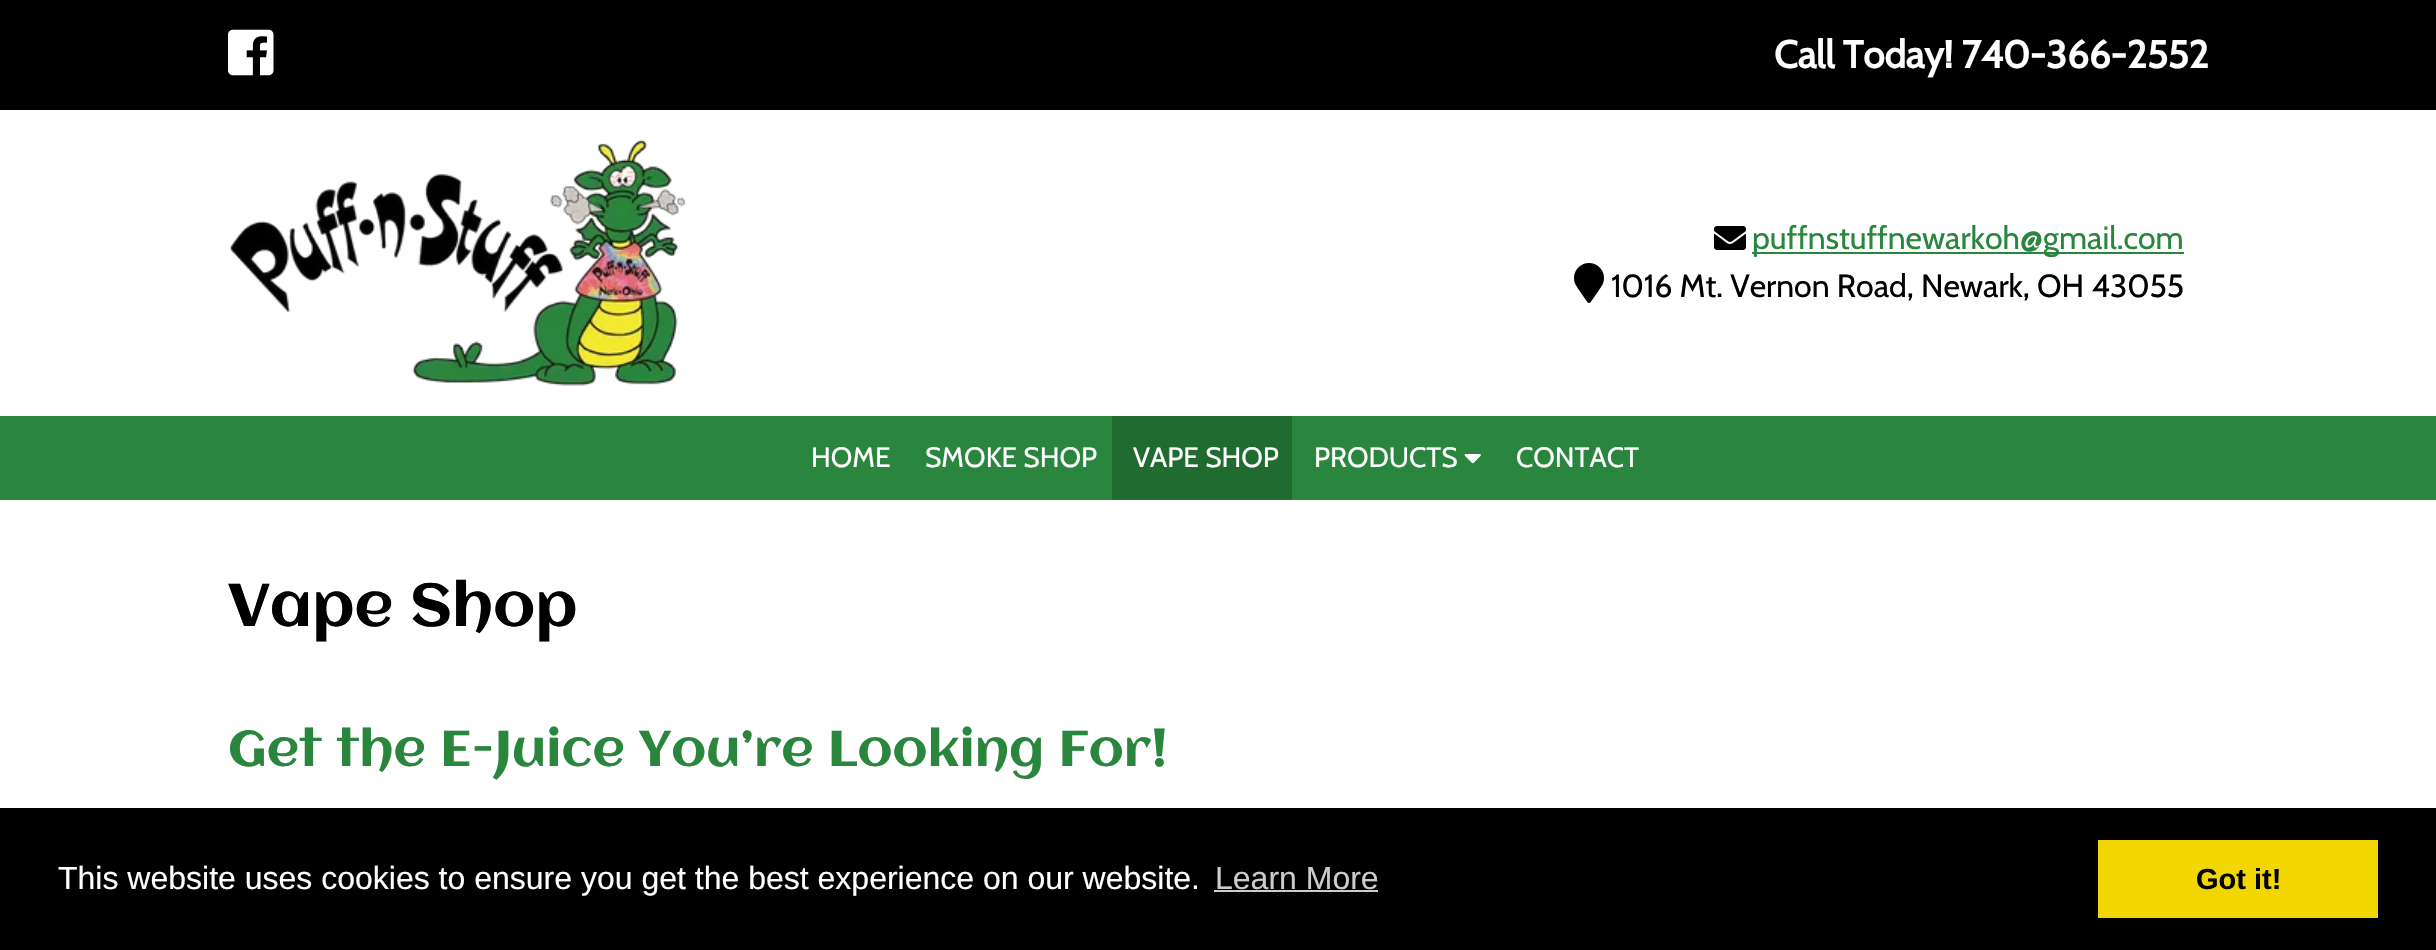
#include "include/core/SkBlurTypes.h"
#include "include/core/SkCanvas.h"
#include "include/core/SkData.h"
#include "include/core/SkFont.h"
#include "include/core/SkFontMgr.h"
#include "include/core/SkImage.h"
#include "include/core/SkMaskFilter.h"
#include "include/core/SkPaint.h"
#include "include/core/SkPathBuilder.h"
#include "include/core/SkTextBlob.h"
#include "include/effects/SkDashPathEffect.h"
#include "include/effects/SkGradientShader.h"
#include "include/utils/SkParsePath.h"

extern sk_sp<SkFontMgr> fontMgr;

void draw(SkCanvas* canvas) {
  SkPaint p;
  p.setAntiAlias(true);
  canvas->clear(SK_ColorWHITE);
  p.setColor(SK_ColorBLACK);
  canvas->drawRect(SkRect::MakeLTRB(0, 0, 2436, 110), p);
  canvas->drawImageRect(SkImages::DeferredFromEncodedData(SkData::MakeFromFileName("images/1.png")), SkRect::MakeLTRB(228, 29, 274, 76), SkSamplingOptions());
  canvas->drawImageRect(SkImages::DeferredFromEncodedData(SkData::MakeFromFileName("images/2.png")), SkRect::MakeLTRB(229, 139, 686, 386), SkSamplingOptions());
  canvas->drawImageRect(SkImages::DeferredFromEncodedData(SkData::MakeFromFileName("images/3.png")), SkRect::MakeLTRB(1714, 226, 1746, 250), SkSamplingOptions());
  p.setColor(SkColorSetRGB(42, 133, 61));
  canvas->drawRect(SkRect::MakeLTRB(1752, 252, 2184, 254), p);
  canvas->drawImageRect(SkImages::DeferredFromEncodedData(SkData::MakeFromFileName("images/4.png")), SkRect::MakeLTRB(1574, 263, 1604, 303), SkSamplingOptions());
  p.setColor(SkColorSetRGB(42, 134, 63));
  canvas->drawRect(SkRect::MakeLTRB(0, 416, 2436, 500), p);
  p.setColor(SkColorSetRGB(32, 107, 48));
  canvas->drawRect(SkRect::MakeLTRB(1112, 416, 1292, 500), p);
  canvas->drawImageRect(SkImages::DeferredFromEncodedData(SkData::MakeFromFileName("images/5.png")), SkRect::MakeLTRB(1464, 454, 1481, 464), SkSamplingOptions());
  p.setColor(SK_ColorBLACK);
  canvas->drawRect(SkRect::MakeLTRB(0, 808, 2436, 950), p);
  p.setColor(SkColorSetRGB(204, 204, 204));
  canvas->drawRect(SkRect::MakeLTRB(1214, 890, 1378, 892), p);
  p.setColor(SkColorSetRGB(241, 214, 0));
  canvas->drawRect(SkRect::MakeLTRB(2098, 840, 2378, 918), p);
  SkFont font1(fontMgr->matchFamilyStyle("Cabin", SkFontStyle::Bold()), 38.4f);
  font1.setSubpixel(true);
  p.setColor(SK_ColorWHITE);
  canvas->drawString("Call Today! 740-366-2552", 1774, 68, font1, p);
  SkFont font2(fontMgr->matchFamilyStyle("Cabin", SkFontStyle::Normal()), 32);
  font2.setSubpixel(true);
  p.setColor(SkColorSetRGB(42, 133, 61));
  canvas->drawString("puffnstuffnewarkoh@gmail.com", 1752, 249, font2, p);
  p.setColor(SK_ColorBLACK);
  canvas->drawString("1016 Mt. Vernon Road, Newark, OH 43055", 1611, 297, font2, p);
  SkFont font3(fontMgr->matchFamilyStyle("Cabin", SkFontStyle::Normal()), 28);
  font3.setSubpixel(true);
  p.setColor(SK_ColorWHITE);
  canvas->drawString("HOME", 811, 467, font3, p);
  canvas->drawString("SMOKE SHOP", 925, 467, font3, p);
  canvas->drawString("VAPE SHOP", 1133, 467, font3, p);
  canvas->drawString("PRODUCTS", 1314, 467, font3, p);
  canvas->drawString("CONTACT", 1516, 467, font3, p);
  SkFont font4(fontMgr->matchFamilyStyle("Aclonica", SkFontStyle::Normal()), 60);
  font4.setSubpixel(true);
  p.setColor(SK_ColorBLACK);
  canvas->drawString("Vape Shop", 228, 626, font4, p);
  SkFont font5(fontMgr->matchFamilyStyle("Aclonica", SkFontStyle::Normal()), 50);
  font5.setSubpixel(true);
  p.setColor(SkColorSetRGB(42, 133, 61));
  canvas->drawString("Get the E-Juice You’re Looking For!", 228, 766, font5, p);
  SkFont font6(fontMgr->matchFamilyStyle("Liberation Sans", SkFontStyle::Normal()), 32);
  font6.setSubpixel(true);
  p.setColor(SK_ColorWHITE);
  canvas->drawString("This website uses cookies to ensure you get the best experience on our website.", 58, 889, font6, p);
  p.setColor(SkColorSetRGB(204, 204, 204));
  canvas->drawString("Learn More", 1215, 889, font6, p);
  SkFont font7(fontMgr->matchFamilyStyle("Liberation Sans", SkFontStyle::Bold()), 29);
  font7.setSubpixel(true);
  p.setColor(SK_ColorBLACK);
  canvas->drawString("Got it!", 2196, 889, font7, p);
}
